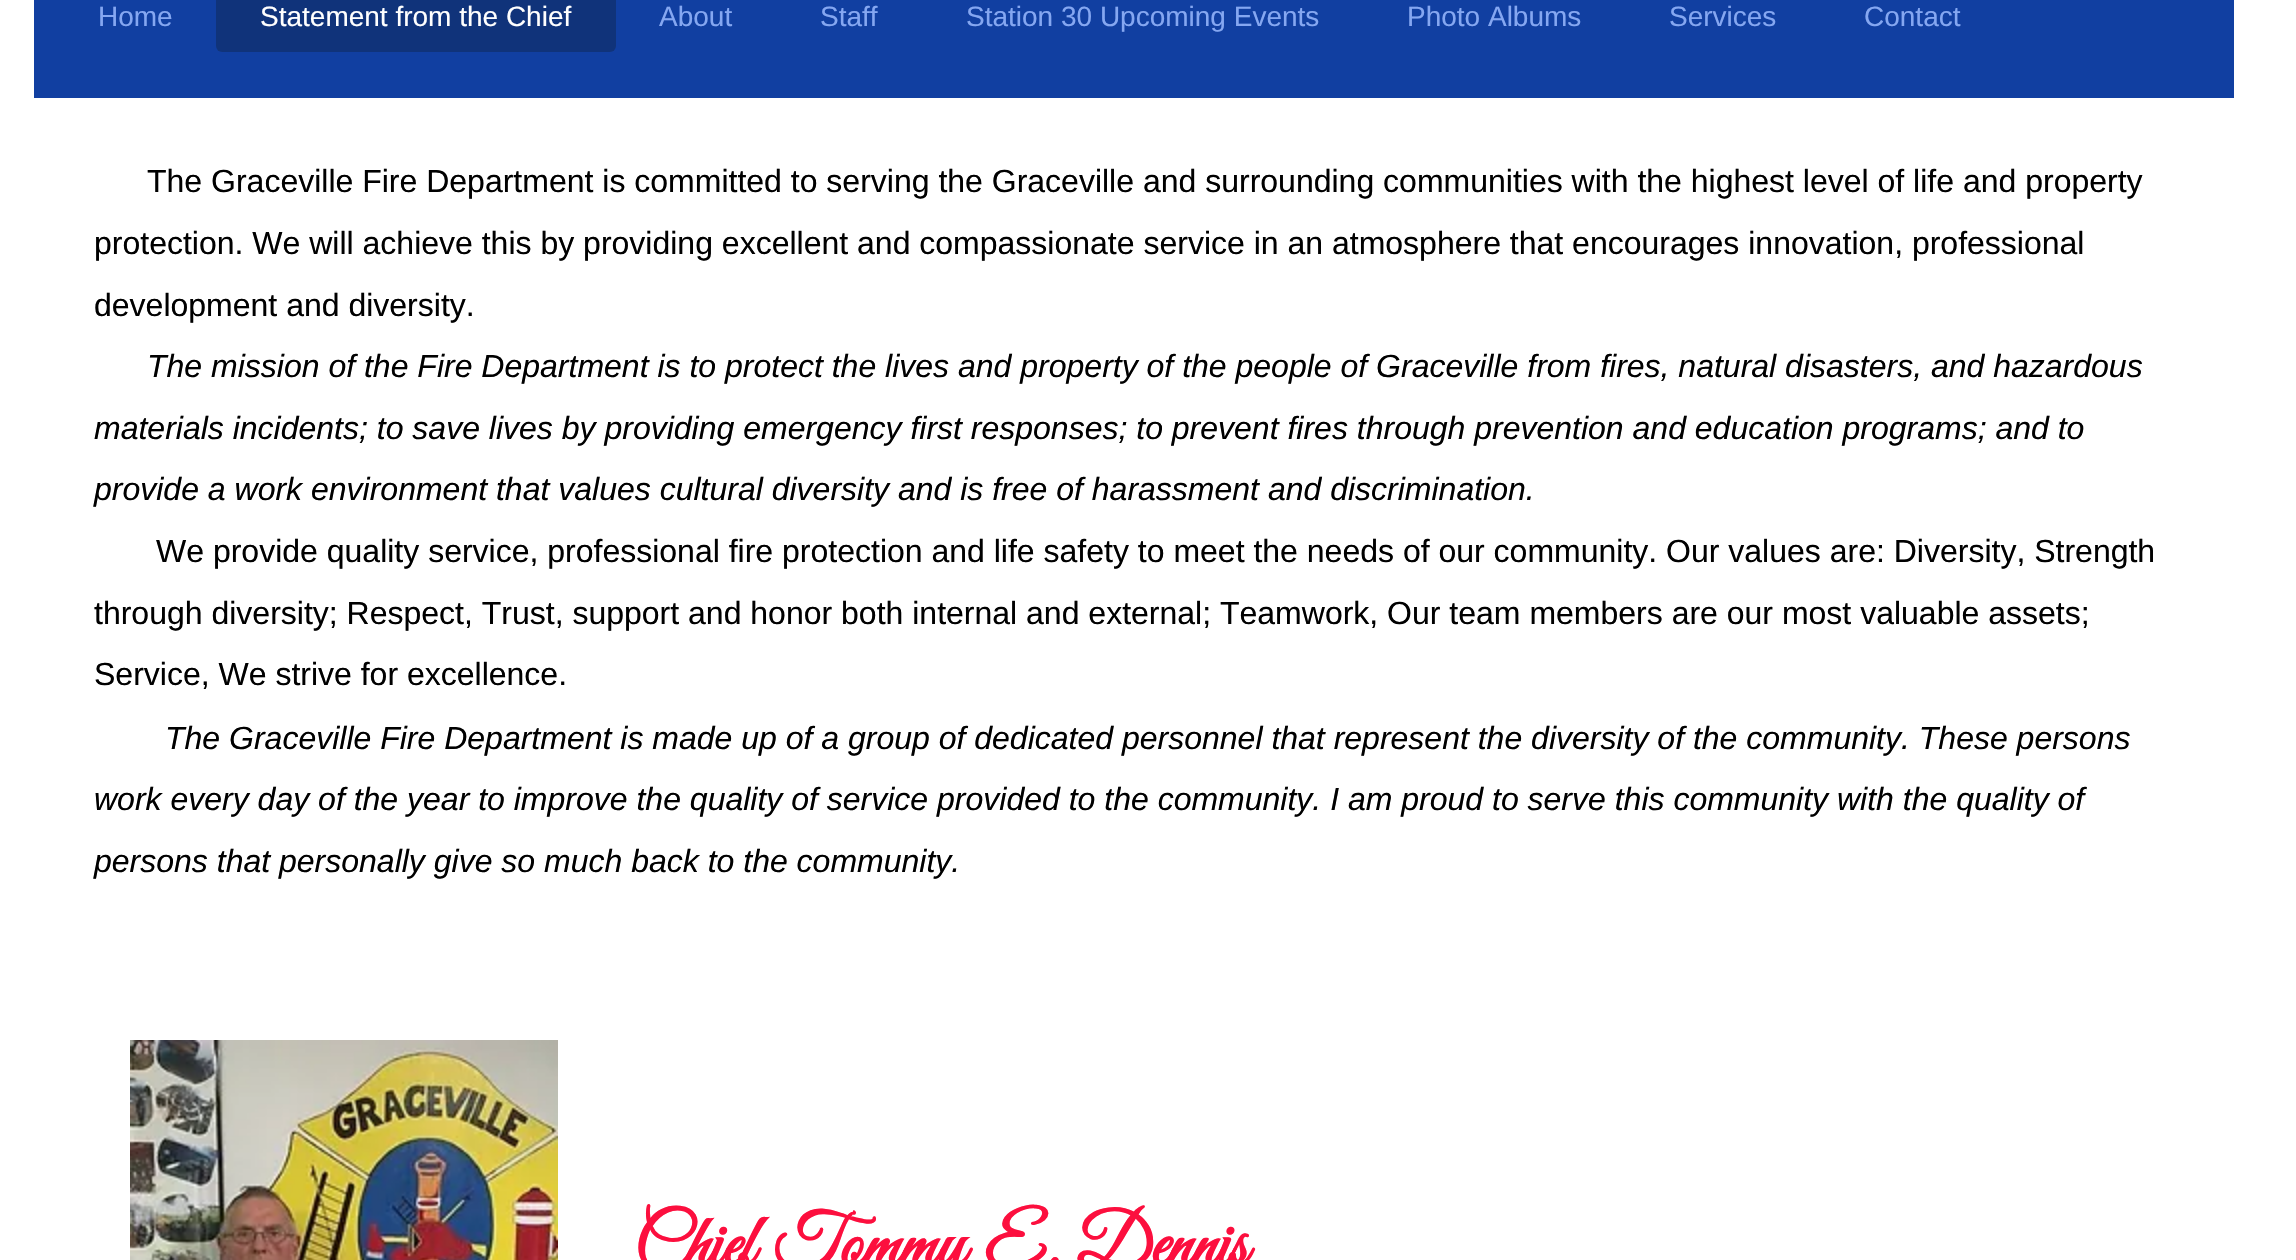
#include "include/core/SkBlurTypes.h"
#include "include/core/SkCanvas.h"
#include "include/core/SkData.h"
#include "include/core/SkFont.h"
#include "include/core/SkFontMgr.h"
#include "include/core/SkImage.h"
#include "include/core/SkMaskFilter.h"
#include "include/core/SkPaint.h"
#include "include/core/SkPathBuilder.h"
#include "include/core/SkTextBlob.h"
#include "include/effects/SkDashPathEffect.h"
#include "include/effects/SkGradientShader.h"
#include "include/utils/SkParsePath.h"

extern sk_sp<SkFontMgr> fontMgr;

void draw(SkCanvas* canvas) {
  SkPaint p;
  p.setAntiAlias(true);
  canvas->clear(SK_ColorWHITE);
  p.setColor(SkColorSetRGB(17, 63, 161));
  canvas->drawRect(SkRect::MakeLTRB(34, 0, 2234, 98), p);
  p.setColor(SkColorSetRGB(16, 51, 122));
  canvas->drawRoundRect(SkRect::MakeLTRB(216, -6, 616, 52), 6, 6, p);
  canvas->drawImageRect(SkImages::DeferredFromEncodedData(SkData::MakeFromFileName("images/1.png")), SkRect::MakeLTRB(130, 1040, 558, 1260), SkSamplingOptions());
  SkFont font1(fontMgr->matchFamilyStyle("Liberation Sans", SkFontStyle::Normal()), 28);
  font1.setSubpixel(true);
  p.setColor(SkColorSetRGB(133, 167, 241));
  canvas->drawString("Home", 98, 26, font1, p);
  p.setColor(SK_ColorWHITE);
  canvas->drawString("Statement from the Chief", 260, 26, font1, p);
  p.setColor(SkColorSetRGB(133, 167, 241));
  canvas->drawString("About", 659, 26, font1, p);
  canvas->drawString("Staff", 820, 26, font1, p);
  canvas->drawString("Station 30 Upcoming Events", 966, 26, font1, p);
  canvas->drawString("Photo Albums", 1407, 26, font1, p);
  canvas->drawString("Services", 1669, 26, font1, p);
  canvas->drawString("Contact", 1864, 26, font1, p);
  SkFont font2(fontMgr->matchFamilyStyle("Liberation Sans", SkFontStyle::Normal()), 32);
  font2.setSubpixel(true);
  p.setColor(SK_ColorBLACK);
  canvas->drawString("The Graceville Fire Department is committed to serving the Graceville and surrounding communities with the highest level of life and property", 147, 192, font2, p);
  canvas->drawString("protection. We will achieve this by providing excellent and compassionate service in an atmosphere that encourages innovation, professional", 94, 254, font2, p);
  canvas->drawString("development and diversity.", 94, 316, font2, p);
  SkFont font3(fontMgr->matchFamilyStyle("Liberation Sans", SkFontStyle::Italic()), 32);
  font3.setSubpixel(true);
  canvas->drawString("The mission of the Fire Department is to protect the lives and property of the people of Graceville from fires, natural disasters, and hazardous", 147, 377, font3, p);
  canvas->drawString("materials incidents; to save lives by providing emergency first responses; to prevent fires through prevention and education programs; and to", 94, 439, font3, p);
  canvas->drawString("provide a work environment that values cultural diversity and is free of harassment and discrimination.", 94, 500, font3, p);
  canvas->drawString("We provide quality service, professional fire protection and life safety to meet the needs of our community. Our values are: Diversity, Strength", 156, 562, font2, p);
  canvas->drawString("through diversity; Respect, Trust, support and honor both internal and external; Teamwork, Our team members are our most valuable assets;", 94, 624, font2, p);
  canvas->drawString("Service, We strive for excellence.", 94, 685, font2, p);
  canvas->drawString("The Graceville Fire Department is made up of a group of dedicated personnel that represent the diversity of the community. These persons", 165, 749, font3, p);
  canvas->drawString("work every day of the year to improve the quality of service provided to the community. I am proud to serve this community with the quality of", 94, 810, font3, p);
  canvas->drawString("persons that personally give so much back to the community.", 94, 872, font3, p);
  SkFont font4(fontMgr->matchFamilyStyle("Great Vibes", SkFontStyle::Bold()), 72);
  font4.setSubpixel(true);
  p.setColor(SkColorSetRGB(252, 15, 62));
  canvas->drawString("Chief Tommy E. Dennis", 634, 1264, font4, p);
}
